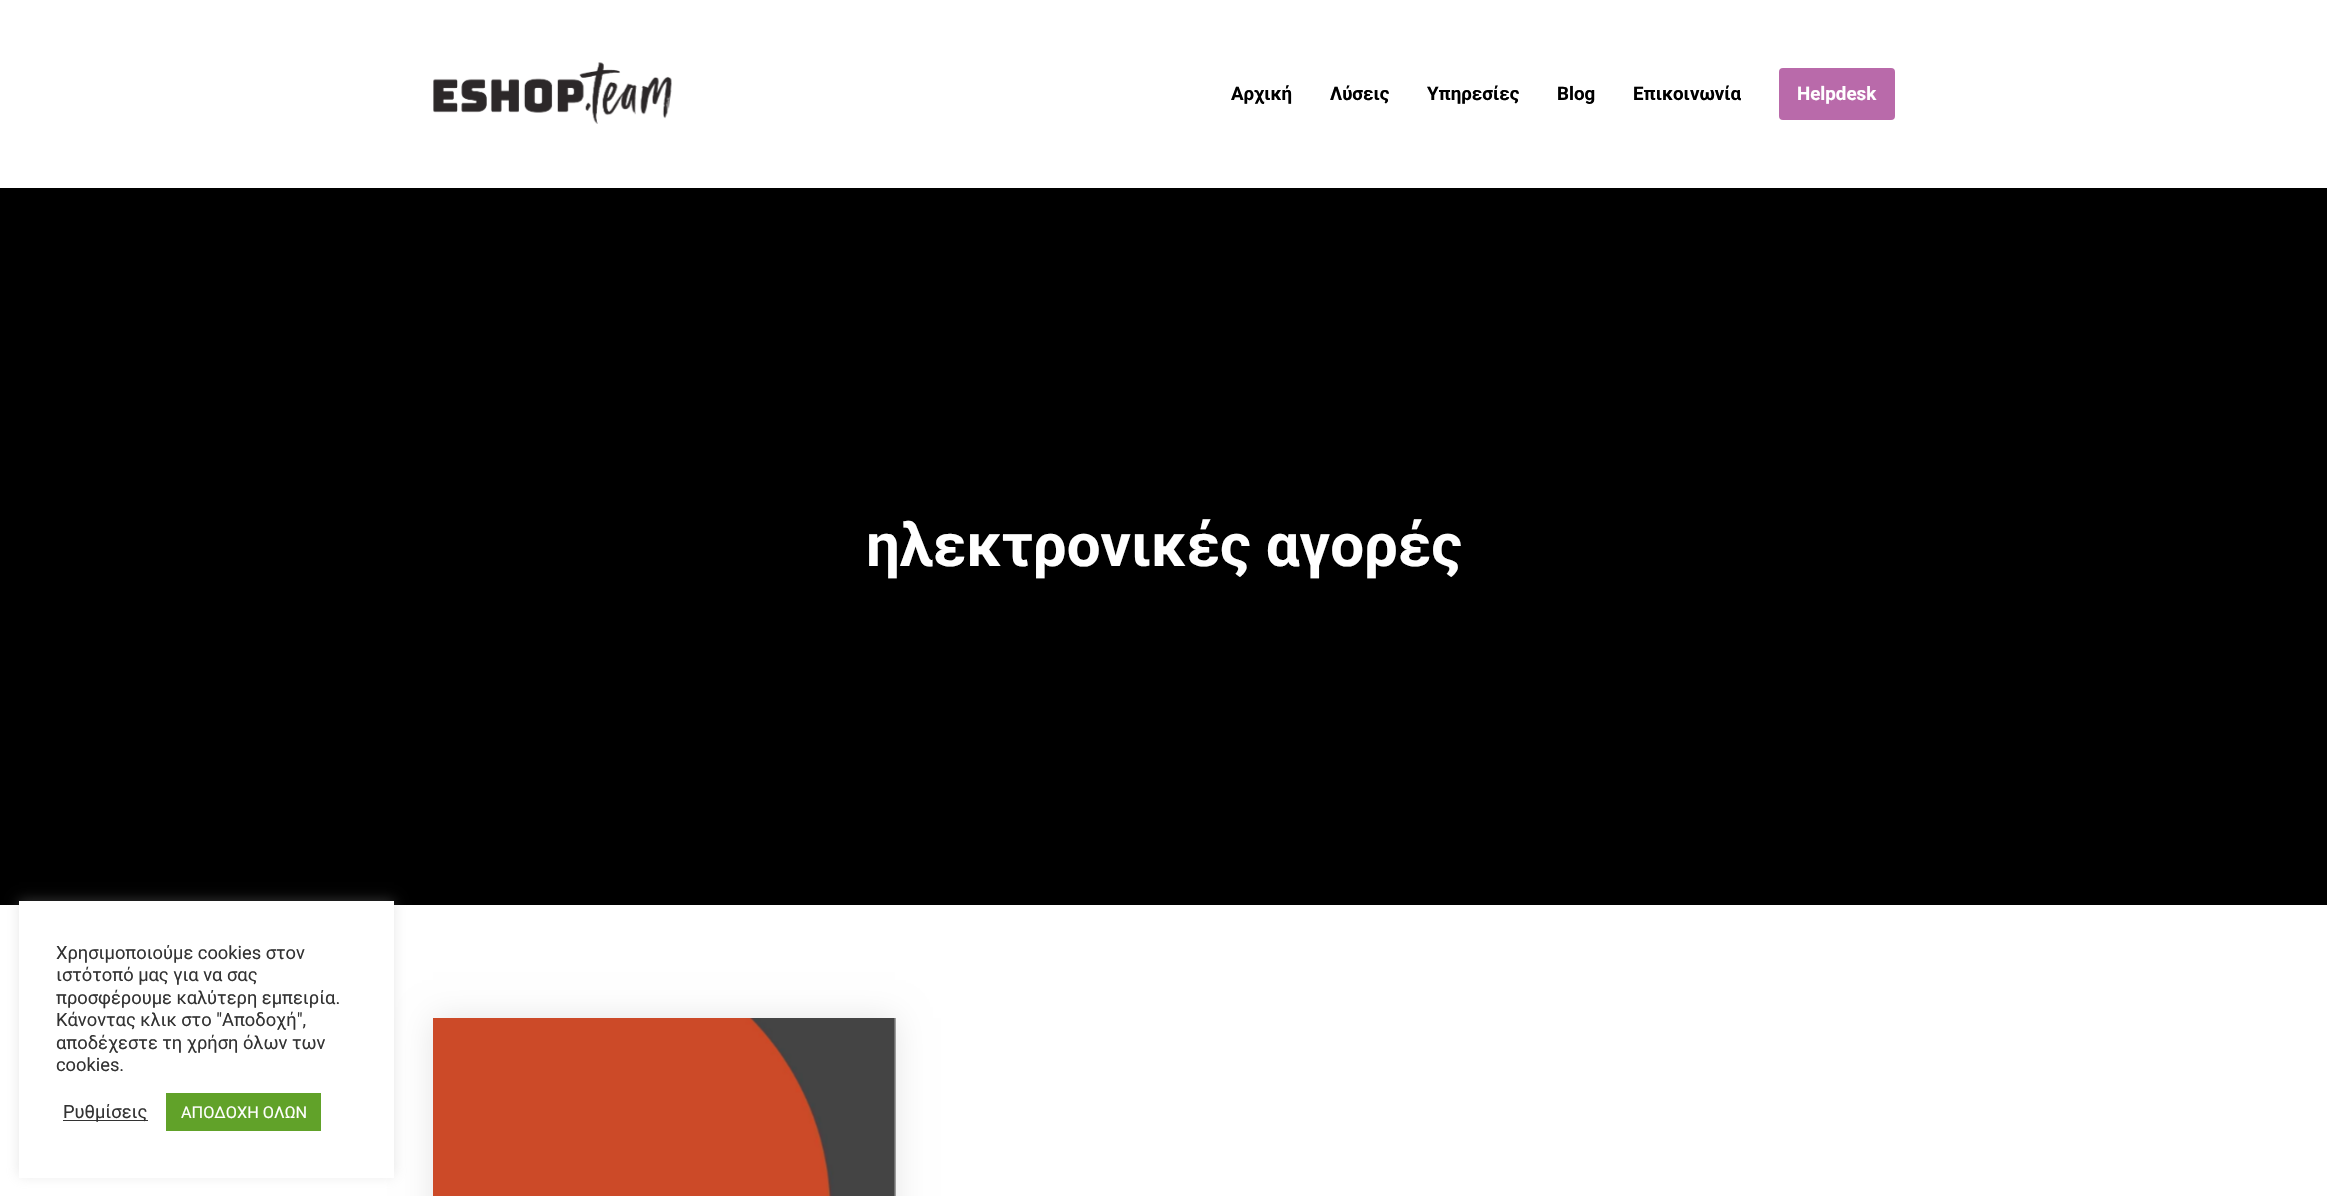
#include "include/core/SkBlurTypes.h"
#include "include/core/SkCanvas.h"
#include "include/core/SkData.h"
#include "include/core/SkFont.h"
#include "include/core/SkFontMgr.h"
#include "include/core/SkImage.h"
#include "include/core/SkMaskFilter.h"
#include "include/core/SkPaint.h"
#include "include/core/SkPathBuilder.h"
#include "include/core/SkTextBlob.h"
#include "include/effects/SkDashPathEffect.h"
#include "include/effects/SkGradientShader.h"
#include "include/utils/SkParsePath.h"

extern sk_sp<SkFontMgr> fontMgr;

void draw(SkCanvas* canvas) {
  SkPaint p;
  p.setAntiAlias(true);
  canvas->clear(SK_ColorBLACK);
  p.setColor(SK_ColorWHITE);
  canvas->drawRect(SkRect::MakeLTRB(0, 0, 2327, 188), p);
  canvas->drawImageRect(SkImages::DeferredFromEncodedData(SkData::MakeFromFileName("images/1.png")), SkRect::MakeLTRB(433, 62, 672, 124), SkSamplingOptions());
  p.setColor(SkColorSetRGB(185, 106, 170));
  canvas->drawRoundRect(SkRect::MakeLTRB(1779, 68, 1895, 120), 4, 4, p);
  p.setColor(SK_ColorWHITE);
  canvas->drawRect(SkRect::MakeLTRB(0, 905, 2327, 1196), p);
  p.setColor(SkColorSetARGB(26, 0, 0, 0));
  p.setMaskFilter(SkMaskFilter::MakeBlur(kNormal_SkBlurStyle, 15.5f));
  canvas->drawRect(SkRect::MakeLTRB(433, 1018, 895, 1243), p);
  p.setMaskFilter(nullptr);
  canvas->drawImageRect(SkImages::DeferredFromEncodedData(SkData::MakeFromFileName("images/2.png")), SkRect::MakeLTRB(433, 1018, 896, 1196), SkSamplingOptions());
  p.setColor(SkColorSetARGB(77, 172, 171, 171));
  p.setMaskFilter(SkMaskFilter::MakeBlur(kNormal_SkBlurStyle, 6));
  canvas->drawRect(SkRect::MakeLTRB(19, 900, 394, 1176), p);
  p.setMaskFilter(nullptr);
  p.setColor(SK_ColorWHITE);
  canvas->drawRect(SkRect::MakeLTRB(19, 901, 394, 1178), p);
  p.setColor(SkColorSetRGB(51, 51, 51));
  canvas->drawRect(SkRect::MakeLTRB(63, 1120, 148, 1121), p);
  p.setColor(SkColorSetRGB(97, 162, 41));
  canvas->drawRect(SkRect::MakeLTRB(166, 1093, 321, 1131), p);
  SkFont font1(fontMgr->matchFamilyStyle("Roboto", SkFontStyle::Bold()), 18.75f);
  font1.setSubpixel(true);
  p.setColor(SK_ColorBLACK);
  canvas->drawString("Αρχική", 1231, 100, font1, p);
  canvas->drawString("Λύσεις", 1330, 100, font1, p);
  canvas->drawString("Υπηρεσίες", 1427, 100, font1, p);
  canvas->drawString("Blog", 1557, 100, font1, p);
  canvas->drawString("Επικοινωνία", 1633, 100, font1, p);
  p.setColor(SK_ColorWHITE);
  canvas->drawString("Helpdesk", 1797, 100, font1, p);
  SkFont font2(fontMgr->matchFamilyStyle("Roboto", SkFontStyle::Bold()), 60);
  font2.setSubpixel(true);
  canvas->drawString("ηλεκτρονικές αγορές", 866, 566, font2, p);
  SkFont font3(fontMgr->matchFamilyStyle("Roboto", SkFontStyle::Normal()), 18.3f);
  font3.setSubpixel(true);
  p.setColor(SkColorSetRGB(51, 51, 51));
  canvas->drawString("Χρησιμοποιούμε cookies στον", 56, 959, font3, p);
  canvas->drawString("ιστότοπό μας για να σας", 56, 981, font3, p);
  canvas->drawString("προσφέρουμε καλύτερη εμπειρία.", 56, 1004, font3, p);
  canvas->drawString("Κάνοντας κλικ στο \"Αποδοχή\",", 56, 1026, font3, p);
  canvas->drawString("αποδέχεστε τη χρήση όλων των", 56, 1049, font3, p);
  canvas->drawString("cookies.", 56, 1071, font3, p);
  canvas->drawString("Ρυθμίσεις", 63, 1118, font3, p);
  SkFont font4(fontMgr->matchFamilyStyle("Roboto", SkFontStyle::Normal()), 16.25f);
  font4.setSubpixel(true);
  p.setColor(SK_ColorWHITE);
  canvas->drawString("ΑΠΟΔΟΧΗ ΟΛΩΝ", 181, 1118, font4, p);
}
